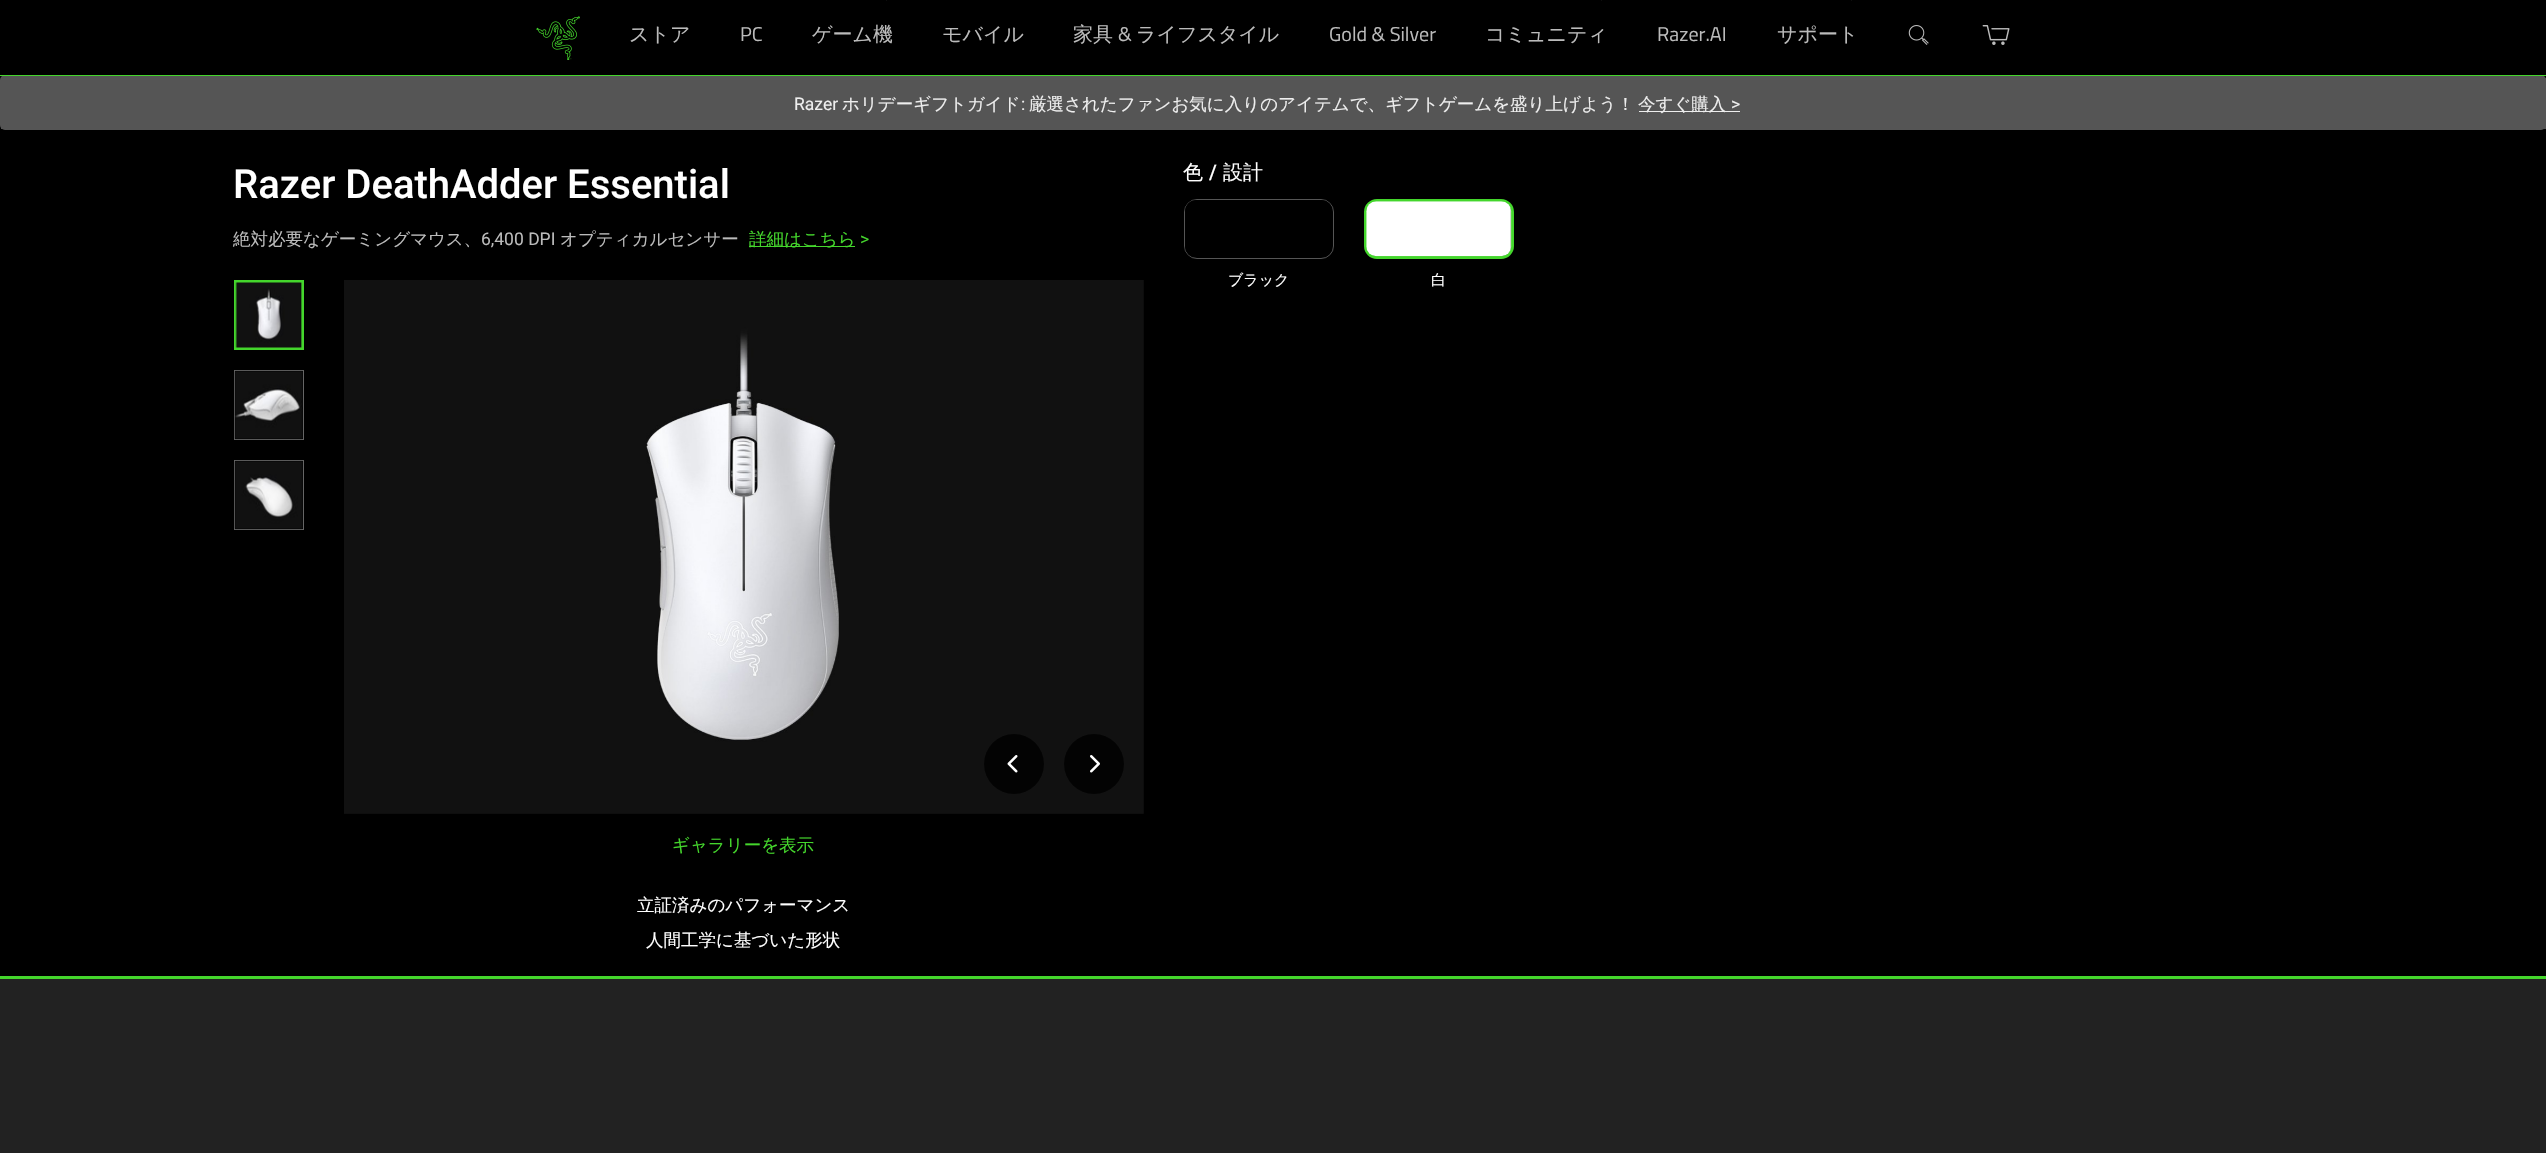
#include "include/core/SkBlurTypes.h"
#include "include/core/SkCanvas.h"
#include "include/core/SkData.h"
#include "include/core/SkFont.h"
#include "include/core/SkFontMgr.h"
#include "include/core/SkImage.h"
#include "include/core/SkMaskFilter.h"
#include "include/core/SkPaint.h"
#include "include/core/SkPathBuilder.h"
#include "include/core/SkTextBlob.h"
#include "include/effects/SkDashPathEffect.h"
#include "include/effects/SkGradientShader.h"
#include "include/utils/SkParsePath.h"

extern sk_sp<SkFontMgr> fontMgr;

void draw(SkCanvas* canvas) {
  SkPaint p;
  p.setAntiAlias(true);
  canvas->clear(SK_ColorBLACK);
  p.setColor(SkColorSetRGB(85, 85, 85));
  canvas->drawRoundRect(SkRect::MakeLTRB(0, 75, 2546, 130), 5, 5, p);
  p.setColor(SkColorSetRGB(68, 214, 44));
  canvas->drawRect(SkRect::MakeLTRB(0, 75, 2546, 76), p);
  canvas->drawImageRect(SkImages::DeferredFromEncodedData(SkData::MakeFromFileName("images/1.png")), SkRect::MakeLTRB(536, 16, 580, 60), SkSamplingOptions());
  p.setColor(SkColorSetRGB(13, 13, 13));
  canvas->drawRect(SkRect::MakeLTRB(886, 0, 887, 1), p);
  canvas->drawRect(SkRect::MakeLTRB(1601, 0, 1602, 1), p);
  canvas->drawRect(SkRect::MakeLTRB(1851, 0, 1852, 1), p);
  canvas->drawImageRect(SkImages::DeferredFromEncodedData(SkData::MakeFromFileName("images/2.png")), SkRect::MakeLTRB(1908, 25, 1929, 45), SkSamplingOptions());
  canvas->drawImageRect(SkImages::DeferredFromEncodedData(SkData::MakeFromFileName("images/3.png")), SkRect::MakeLTRB(1982, 25, 2010, 45), SkSamplingOptions());
  p.setColor(SkColorSetRGB(85, 85, 85));
  canvas->drawRect(SkRect::MakeLTRB(1, 78, 2546, 129), p);
  p.setColor(SkColorSetRGB(238, 238, 238));
  canvas->drawRect(SkRect::MakeLTRB(1639, 111, 1740, 112), p);
  p.setColor(SkColorSetRGB(68, 214, 44));
  canvas->drawRect(SkRect::MakeLTRB(749, 246, 855, 247), p);
  p.setStyle(SkPaint::kStroke_Style);
  p.setStrokeWidth(3);
  canvas->drawRect(SkRect::MakeLTRB(235.5f, 281.5f, 302.5f, 348.5f), p);
  canvas->drawImageRect(SkImages::DeferredFromEncodedData(SkData::MakeFromFileName("images/4.png")), SkRect::MakeLTRB(235, 282, 302, 348), SkSamplingOptions());
  p.setStrokeWidth(1);
  p.setColor(SkColorSetRGB(101, 101, 101));
  canvas->drawRect(SkRect::MakeLTRB(234.5f, 370.5f, 303.5f, 439.5f), p);
  canvas->drawImageRect(SkImages::DeferredFromEncodedData(SkData::MakeFromFileName("images/5.png")), SkRect::MakeLTRB(234, 370, 303, 440), SkSamplingOptions());
  canvas->drawRect(SkRect::MakeLTRB(234.5f, 460.5f, 303.5f, 529.5f), p);
  canvas->drawImageRect(SkImages::DeferredFromEncodedData(SkData::MakeFromFileName("images/6.png")), SkRect::MakeLTRB(234, 460, 303, 530), SkSamplingOptions());
  canvas->drawImageRect(SkImages::DeferredFromEncodedData(SkData::MakeFromFileName("images/7.png")), SkRect::MakeLTRB(344, 280, 1144, 814), SkSamplingOptions());
  p.setStyle(SkPaint::kFill_Style);
  p.setColor(SkColorSetRGB(3, 3, 3));
  canvas->drawCircle(1014, 764, 30, p);
  canvas->drawImageRect(SkImages::DeferredFromEncodedData(SkData::MakeFromFileName("images/8.png")), SkRect::MakeLTRB(1007, 755, 1018, 773), SkSamplingOptions());
  canvas->drawCircle(1094, 764, 30, p);
  canvas->drawImageRect(SkImages::DeferredFromEncodedData(SkData::MakeFromFileName("images/9.png")), SkRect::MakeLTRB(1090, 755, 1100, 773), SkSamplingOptions());
  p.setStyle(SkPaint::kStroke_Style);
  p.setColor(SkColorSetRGB(85, 85, 85));
  canvas->drawRoundRect(SkRect::MakeLTRB(1184.5f, 199.5f, 1333.5f, 258.5f), 12.5f, 12.5f, p);
  canvas->drawImageRect(SkImages::DeferredFromEncodedData(SkData::MakeFromFileName("images/10.png")), SkRect::MakeLTRB(1185, 200, 1333, 257), SkSamplingOptions());
  p.setStrokeWidth(3);
  p.setColor(SkColorSetRGB(68, 214, 44));
  canvas->drawRoundRect(SkRect::MakeLTRB(1365.5f, 200.5f, 1512.5f, 257.5f), 11.5f, 11.5f, p);
  canvas->drawImageRect(SkImages::DeferredFromEncodedData(SkData::MakeFromFileName("images/11.png")), SkRect::MakeLTRB(1366, 201, 1512, 257), SkSamplingOptions());
  p.setStyle(SkPaint::kFill_Style);
  p.setColor(SkColorSetRGB(34, 34, 34));
  canvas->drawRect(SkRect::MakeLTRB(0, 979, 2546, 1153), p);
  p.setColor(SkColorSetRGB(68, 214, 44));
  canvas->drawRect(SkRect::MakeLTRB(0, 976, 2546, 979), p);
  SkFont font1(fontMgr->matchFamilyStyle("WenQuanYi Zen Hei", SkFontStyle(500, SkFontStyle::kNormal_Width, SkFontStyle::kUpright_Slant)), 20);
  font1.setSubpixel(true);
  p.setColor(SkColorSetRGB(187, 187, 187));
  canvas->drawString("ストア", 629, 41, font1, p);
  SkFont font2(fontMgr->matchFamilyStyle("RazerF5", SkFontStyle::Normal()), 20);
  font2.setSubpixel(true);
  canvas->drawString("PC", 740, 41, font2, p);
  canvas->drawString("ゲーム機", 812, 41, font1, p);
  canvas->drawString("モバイル", 942, 41, font1, p);
  canvas->drawString("家具", 1073, 41, font1, p);
  canvas->drawString("&", 1118, 41, font2, p);
  canvas->drawString("ライフスタイル", 1136, 41, font1, p);
  canvas->drawString("Gold & Silver", 1329, 41, font2, p);
  canvas->drawString("コミュニティ", 1485, 41, font1, p);
  canvas->drawString("Razer.AI", 1657, 41, font2, p);
  canvas->drawString("サポート", 1777, 41, font1, p);
  SkFont font3(fontMgr->matchFamilyStyle("Roboto", SkFontStyle::Normal()), 17.5f);
  font3.setSubpixel(true);
  p.setColor(SkColorSetRGB(238, 238, 238));
  canvas->drawString("Razer", 794, 110, font3, p);
  SkFont font4(fontMgr->matchFamilyStyle("WenQuanYi Zen Hei", SkFontStyle(500, SkFontStyle::kNormal_Width, SkFontStyle::kUpright_Slant)), 17.5f);
  font4.setSubpixel(true);
  canvas->drawString("ホリデーギフトガイド", 842, 110, font4, p);
  canvas->drawString(":", 1021, 110, font3, p);
  canvas->drawString("厳選されたファンお気に入りのアイテムで、ギフトゲームを盛り上げよう！", 1029, 110, font4, p);
  canvas->drawString("今すぐ購入", 1638, 110, font4, p);
  canvas->drawString(">", 1731, 110, font3, p);
  SkFont font5(fontMgr->matchFamilyStyle("Roboto", SkFontStyle(500, SkFontStyle::kNormal_Width, SkFontStyle::kUpright_Slant)), 40);
  font5.setSubpixel(true);
  p.setColor(SK_ColorWHITE);
  canvas->drawString("Razer DeathAdder Essential", 233, 198, font5, p);
  p.setColor(SkColorSetRGB(187, 187, 187));
  canvas->drawString("絶対必要なゲーミングマウス、", 233, 245, font4, p);
  canvas->drawString("6,400 DPI", 481, 245, font3, p);
  canvas->drawString("オプティカルセンサー", 560, 245, font4, p);
  p.setColor(SkColorSetRGB(68, 214, 44));
  canvas->drawString("詳細はこちら", 749, 245, font4, p);
  canvas->drawString(">", 860, 245, font3, p);
  canvas->drawString("ギャラリーを表示", 672, 851, font4, p);
  p.setColor(SK_ColorWHITE);
  canvas->drawString("立証済みのパフォーマンス", 637, 911, font4, p);
  canvas->drawString("人間工学に基づいた形状", 646, 946, font4, p);
  canvas->drawString("色", 1183, 179, font1, p);
  SkFont font6(fontMgr->matchFamilyStyle("Roboto", SkFontStyle(500, SkFontStyle::kNormal_Width, SkFontStyle::kUpright_Slant)), 20);
  font6.setSubpixel(true);
  canvas->drawString("/", 1209, 179, font6, p);
  canvas->drawString("設計", 1223, 179, font1, p);
  SkFont font7(fontMgr->matchFamilyStyle("WenQuanYi Zen Hei", SkFontStyle(500, SkFontStyle::kNormal_Width, SkFontStyle::kUpright_Slant)), 15);
  font7.setSubpixel(true);
  canvas->drawString("ブラック", 1228, 285, font7, p);
  canvas->drawString("白", 1431, 285, font7, p);
}
